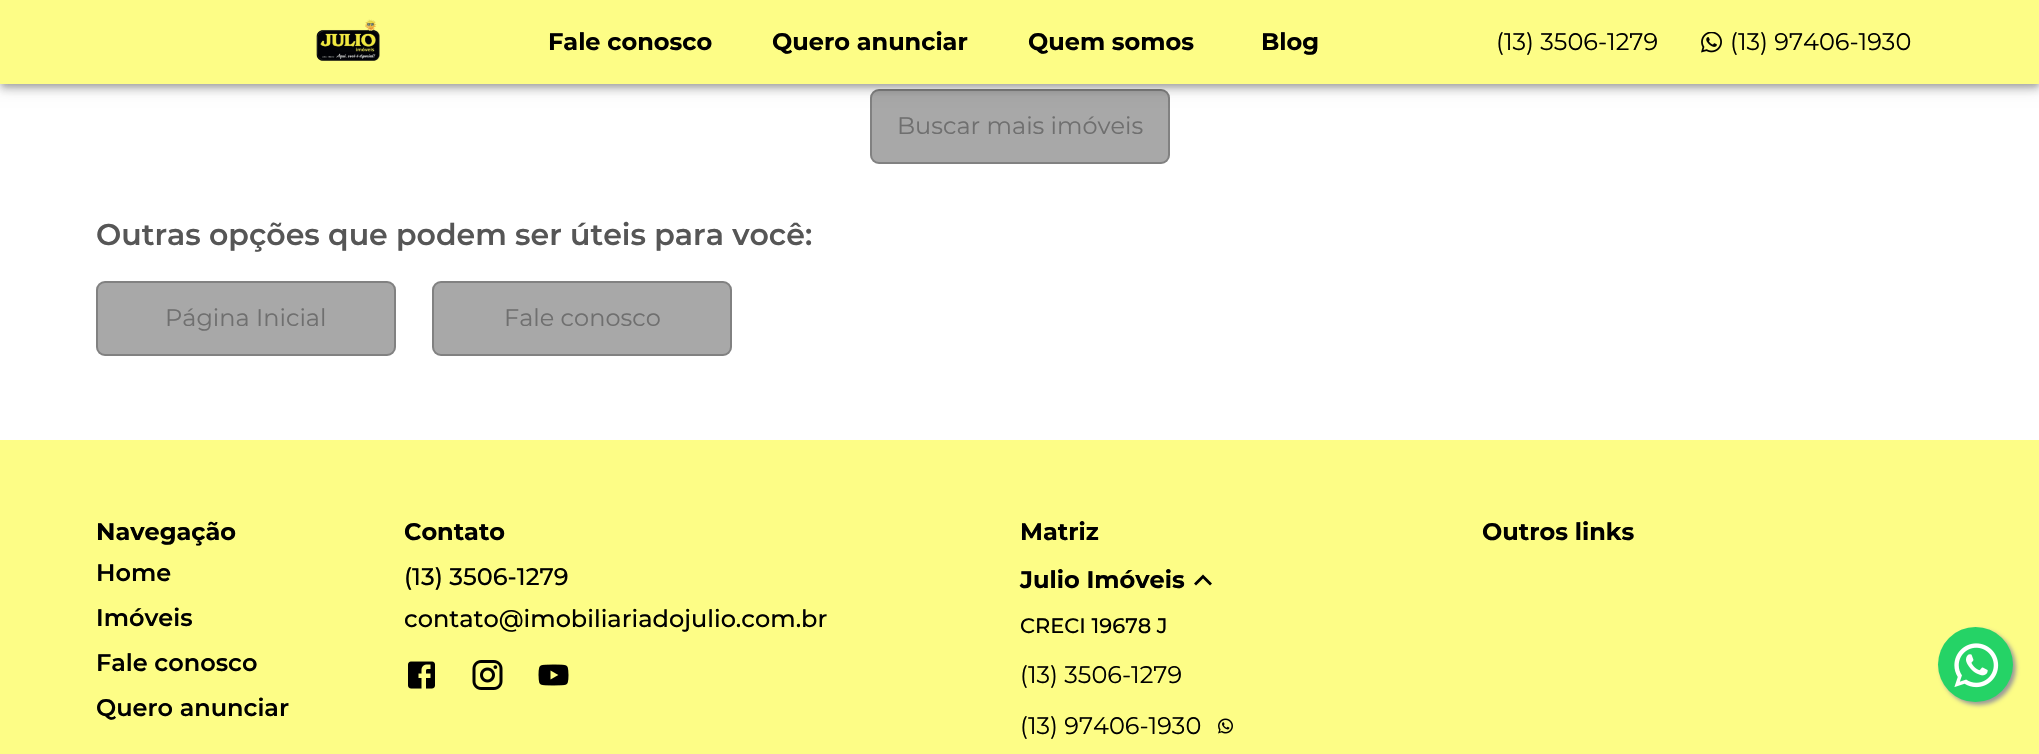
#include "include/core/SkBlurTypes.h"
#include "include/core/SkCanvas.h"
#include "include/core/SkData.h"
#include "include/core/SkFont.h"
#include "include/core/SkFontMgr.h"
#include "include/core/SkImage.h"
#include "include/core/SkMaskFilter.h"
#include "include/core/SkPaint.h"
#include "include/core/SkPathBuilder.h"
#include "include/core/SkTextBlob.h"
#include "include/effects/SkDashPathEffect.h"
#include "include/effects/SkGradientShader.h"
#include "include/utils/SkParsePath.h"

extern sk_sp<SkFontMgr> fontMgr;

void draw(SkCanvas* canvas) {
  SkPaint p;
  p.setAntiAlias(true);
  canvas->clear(SK_ColorWHITE);
  p.setColor(SkColorSetRGB(168, 168, 168));
  canvas->drawRoundRect(SkRect::MakeLTRB(870, 89, 1170, 164), 9, 9, p);
  p.setStyle(SkPaint::kStroke_Style);
  p.setStrokeWidth(2);
  p.setColor(SkColorSetARGB(59, 0, 0, 0));
  canvas->drawRoundRect(SkRect::MakeLTRB(871, 90, 1169, 163), 8, 8, p);
  p.setStyle(SkPaint::kFill_Style);
  p.setColor(SkColorSetARGB(31, 0, 0, 0));
  p.setMaskFilter(SkMaskFilter::MakeBlur(kNormal_SkBlurStyle, 7.5f));
  canvas->drawRect(SkRect::MakeLTRB(0, 2, 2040, 86), p);
  p.setMaskFilter(nullptr);
  p.setColor(SkColorSetARGB(36, 0, 0, 0));
  p.setMaskFilter(SkMaskFilter::MakeBlur(kNormal_SkBlurStyle, 4));
  canvas->drawRect(SkRect::MakeLTRB(0, 6, 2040, 90), p);
  p.setMaskFilter(nullptr);
  p.setColor(SkColorSetARGB(51, 0, 0, 0));
  p.setMaskFilter(SkMaskFilter::MakeBlur(kNormal_SkBlurStyle, 3));
  canvas->drawRect(SkRect::MakeLTRB(2, 5, 2039, 86), p);
  p.setMaskFilter(nullptr);
  p.setColor(SkColorSetRGB(253, 253, 134));
  canvas->drawRect(SkRect::MakeLTRB(0, 0, 2039, 84), p);
  canvas->drawImageRect(SkImages::DeferredFromEncodedData(SkData::MakeFromFileName("images/1.png")), SkRect::MakeLTRB(316, 19, 380, 61), SkSamplingOptions());
  canvas->drawImageRect(SkImages::DeferredFromEncodedData(SkData::MakeFromFileName("images/2.png")), SkRect::MakeLTRB(1701, 32, 1722, 53), SkSamplingOptions());
  p.setColor(SkColorSetRGB(168, 168, 168));
  canvas->drawRoundRect(SkRect::MakeLTRB(96, 281, 396, 356), 9, 9, p);
  p.setStyle(SkPaint::kStroke_Style);
  p.setColor(SkColorSetARGB(59, 0, 0, 0));
  canvas->drawRoundRect(SkRect::MakeLTRB(97, 282, 395, 355), 8, 8, p);
  p.setStyle(SkPaint::kFill_Style);
  p.setColor(SkColorSetRGB(168, 168, 168));
  canvas->drawRoundRect(SkRect::MakeLTRB(432, 281, 732, 356), 9, 9, p);
  p.setStyle(SkPaint::kStroke_Style);
  p.setColor(SkColorSetARGB(59, 0, 0, 0));
  canvas->drawRoundRect(SkRect::MakeLTRB(433, 282, 731, 355), 8, 8, p);
  p.setStyle(SkPaint::kFill_Style);
  p.setColor(SkColorSetRGB(253, 253, 134));
  canvas->drawRect(SkRect::MakeLTRB(0, 440, 2039, 754), p);
  canvas->drawImageRect(SkImages::DeferredFromEncodedData(SkData::MakeFromFileName("images/3.png")), SkRect::MakeLTRB(408, 661, 435, 689), SkSamplingOptions());
  canvas->drawImageRect(SkImages::DeferredFromEncodedData(SkData::MakeFromFileName("images/4.png")), SkRect::MakeLTRB(472, 660, 503, 690), SkSamplingOptions());
  canvas->drawImageRect(SkImages::DeferredFromEncodedData(SkData::MakeFromFileName("images/5.png")), SkRect::MakeLTRB(538, 664, 569, 686), SkSamplingOptions());
  p.setColor(SK_ColorBLACK);
  canvas->drawPath(SkPathBuilder().moveTo(1203, 574.5f).lineTo(1194, 583.5f).lineTo(1196, 585.5f).lineTo(1203, 578.5f).lineTo(1210, 585.5f).lineTo(1212, 583.5f).close().detach(), p);
  canvas->drawImageRect(SkImages::DeferredFromEncodedData(SkData::MakeFromFileName("images/6.png")), SkRect::MakeLTRB(1218, 718, 1233, 734), SkSamplingOptions());
  p.setColor(SkColorSetRGB(153, 153, 153));
  p.setMaskFilter(SkMaskFilter::MakeBlur(kNormal_SkBlurStyle, 2));
  canvas->drawRoundRect(SkRect::MakeLTRB(1941, 630, 2016, 705), 37.5f, 37.5f, p);
  p.setMaskFilter(nullptr);
  p.setColor(SkColorSetRGB(37, 211, 102));
  canvas->drawCircle(1975.5f, 664.5f, 37.5f, p);
  canvas->drawImageRect(SkImages::DeferredFromEncodedData(SkData::MakeFromFileName("images/7.png")), SkRect::MakeLTRB(1954, 643, 1999, 688), SkSamplingOptions());
  SkFont font1(fontMgr->matchFamilyStyle("Montserrat", SkFontStyle::Bold()), 24);
  font1.setSubpixel(true);
  p.setColor(SK_ColorBLACK);
  canvas->drawString("Fale conosco", 548, 50, font1, p);
  canvas->drawString("Quero anunciar", 772, 50, font1, p);
  canvas->drawString("Quem somos", 1028, 50, font1, p);
  canvas->drawString("Blog", 1261, 50, font1, p);
  SkFont font2(fontMgr->matchFamilyStyle("Montserrat", SkFontStyle::Normal()), 24);
  font2.setSubpixel(true);
  canvas->drawString("(13) 3506-1279", 1496, 50, font2, p);
  canvas->drawString("(13) 97406-1930", 1730, 50, font2, p);
  p.setColor(SkColorSetRGB(111, 111, 111));
  canvas->drawString("Buscar mais imóveis", 897, 134, font2, p);
  SkFont font3(fontMgr->matchFamilyStyle("Montserrat", SkFontStyle(600, SkFontStyle::kNormal_Width, SkFontStyle::kUpright_Slant)), 30);
  font3.setSubpixel(true);
  p.setColor(SkColorSetRGB(86, 86, 86));
  canvas->drawString("Outras opções que podem ser úteis para você:", 96, 245, font3, p);
  p.setColor(SkColorSetRGB(111, 111, 111));
  canvas->drawString("Página Inicial", 165, 326, font2, p);
  canvas->drawString("Fale conosco", 504, 326, font2, p);
  p.setColor(SK_ColorBLACK);
  canvas->drawString("Navegação", 96, 540, font1, p);
  SkFont font4(fontMgr->matchFamilyStyle("Montserrat", SkFontStyle(600, SkFontStyle::kNormal_Width, SkFontStyle::kUpright_Slant)), 24);
  font4.setSubpixel(true);
  canvas->drawString("Home", 96, 581, font4, p);
  canvas->drawString("Imóveis", 96, 626, font4, p);
  canvas->drawString("Fale conosco", 96, 671, font4, p);
  canvas->drawString("Quero anunciar", 96, 716, font4, p);
  canvas->drawString("Contato", 404, 540, font1, p);
  SkFont font5(fontMgr->matchFamilyStyle("Montserrat", SkFontStyle(500, SkFontStyle::kNormal_Width, SkFontStyle::kUpright_Slant)), 24);
  font5.setSubpixel(true);
  canvas->drawString("(13) 3506-1279", 404, 585, font5, p);
  canvas->drawString("contato@imobiliariadojulio.com.br", 404, 627, font5, p);
  canvas->drawString("Matriz", 1020, 540, font1, p);
  canvas->drawString("Julio Imóveis", 1020, 588, font1, p);
  SkFont font6(fontMgr->matchFamilyStyle("Montserrat", SkFontStyle(500, SkFontStyle::kNormal_Width, SkFontStyle::kUpright_Slant)), 21);
  font6.setSubpixel(true);
  canvas->drawString("CRECI 19678 J", 1020, 633, font6, p);
  canvas->drawString("(13) 3506-1279", 1020, 683, font2, p);
  canvas->drawString("(13) 97406-1930", 1020, 734, font2, p);
  canvas->drawString("Outros links", 1482, 540, font1, p);
}
